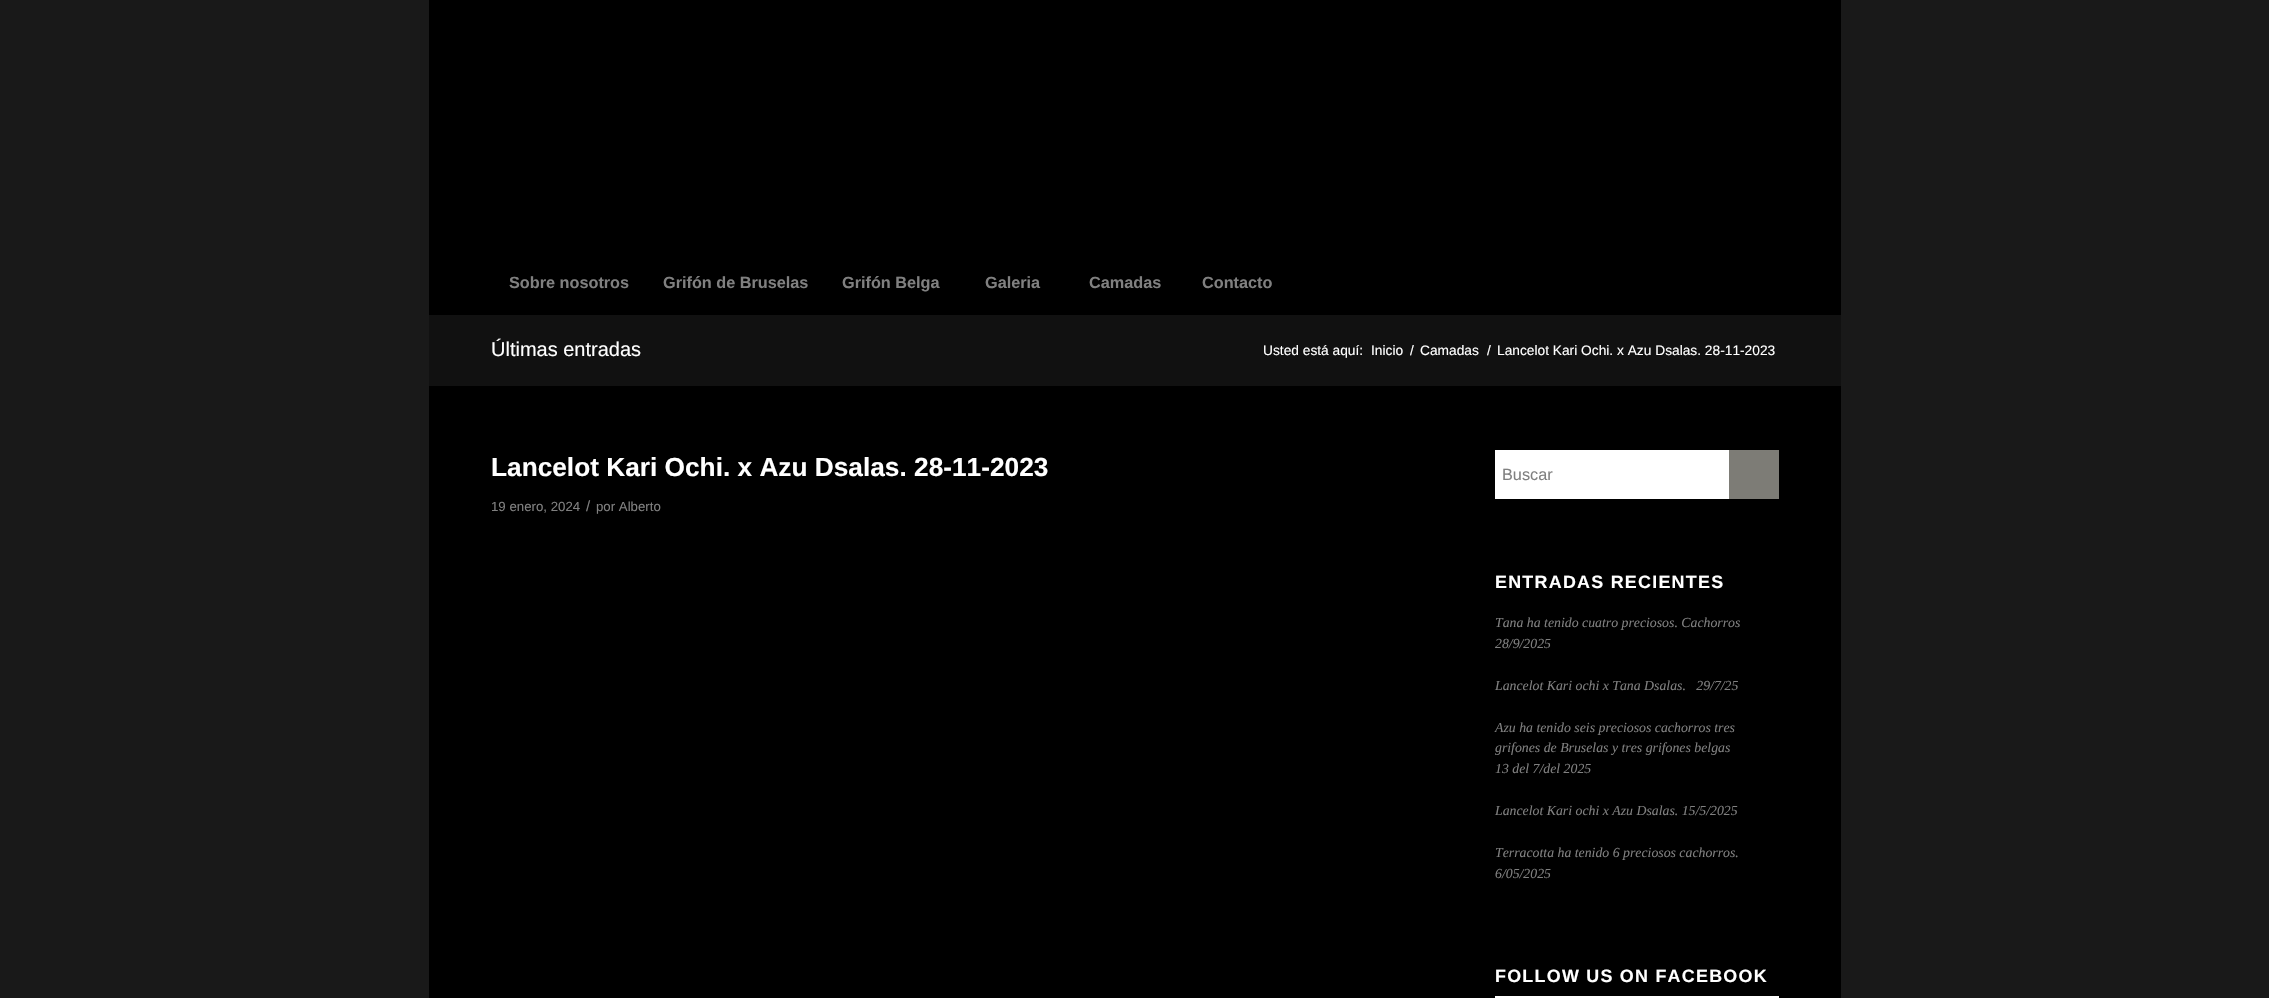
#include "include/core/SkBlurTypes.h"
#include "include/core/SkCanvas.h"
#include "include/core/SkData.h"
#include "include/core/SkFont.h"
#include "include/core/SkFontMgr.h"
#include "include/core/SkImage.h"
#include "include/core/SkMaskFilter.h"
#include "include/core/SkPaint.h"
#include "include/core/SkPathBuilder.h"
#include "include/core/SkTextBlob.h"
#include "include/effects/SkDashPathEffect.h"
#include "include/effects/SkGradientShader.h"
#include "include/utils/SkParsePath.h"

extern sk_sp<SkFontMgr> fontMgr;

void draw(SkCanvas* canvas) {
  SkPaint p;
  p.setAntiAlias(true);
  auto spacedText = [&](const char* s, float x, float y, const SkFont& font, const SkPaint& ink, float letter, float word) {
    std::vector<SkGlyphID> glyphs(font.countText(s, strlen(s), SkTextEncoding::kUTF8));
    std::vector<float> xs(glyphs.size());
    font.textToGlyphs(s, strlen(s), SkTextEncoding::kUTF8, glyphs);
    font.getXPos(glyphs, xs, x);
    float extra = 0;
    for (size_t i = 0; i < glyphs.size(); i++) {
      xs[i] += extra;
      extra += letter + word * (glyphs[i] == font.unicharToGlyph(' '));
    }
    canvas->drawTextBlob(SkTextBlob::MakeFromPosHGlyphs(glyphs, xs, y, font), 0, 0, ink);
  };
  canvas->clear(SkColorSetRGB(25, 25, 25));
  p.setColor(SK_ColorBLACK);
  canvas->drawRect(SkRect::MakeLTRB(429, 0, 1841, 315), p);
  canvas->drawRect(SkRect::MakeLTRB(429, 386, 1841, 998), p);
  p.setColor(SkColorSetRGB(17, 17, 17));
  canvas->drawRect(SkRect::MakeLTRB(429, 315, 1841, 386), p);
  p.setColor(SK_ColorWHITE);
  canvas->drawRect(SkRect::MakeLTRB(1495, 450, 1729, 499), p);
  p.setColor(SkColorSetRGB(125, 124, 118));
  canvas->drawRect(SkRect::MakeLTRB(1729, 450, 1779, 499), p);
  p.setColor(SK_ColorWHITE);
  canvas->drawRect(SkRect::MakeLTRB(1495, 996, 1779, 998), p);
  SkFont font1(fontMgr->matchFamilyStyle("Liberation Sans", SkFontStyle::Bold()), 16.25f);
  font1.setSubpixel(true);
  p.setColor(SkColorSetRGB(128, 128, 128));
  canvas->drawString("Sobre nosotros", 509, 288, font1, p);
  canvas->drawString("Grifón de Bruselas", 663, 288, font1, p);
  canvas->drawString("Grifón Belga", 842, 288, font1, p);
  canvas->drawString("Galeria", 985, 288, font1, p);
  canvas->drawString("Camadas", 1089, 288, font1, p);
  canvas->drawString("Contacto", 1202, 288, font1, p);
  SkFont font2(fontMgr->matchFamilyStyle("Liberation Sans", SkFontStyle::Normal()), 20);
  font2.setSubpixel(true);
  p.setColor(SK_ColorWHITE);
  canvas->drawString("Últimas entradas", 491, 356, font2, p);
  SkFont font3(fontMgr->matchFamilyStyle("Liberation Sans", SkFontStyle::Normal()), 13.75f);
  font3.setSubpixel(true);
  canvas->drawString("Usted está aquí:", 1263, 355, font3, p);
  canvas->drawString("Inicio", 1371, 355, font3, p);
  canvas->drawString("/", 1410, 355, font3, p);
  canvas->drawString("Camadas", 1420, 355, font3, p);
  canvas->drawString("/", 1487, 355, font3, p);
  canvas->drawString("Lancelot Kari Ochi. x Azu Dsalas. 28-11-2023", 1497, 355, font3, p);
  SkFont font4(fontMgr->matchFamilyStyle("Liberation Sans", SkFontStyle::Bold()), 26.25f);
  font4.setSubpixel(true);
  canvas->drawString("Lancelot Kari Ochi. x Azu Dsalas. 28-11-2023", 491, 476, font4, p);
  SkFont font5(fontMgr->matchFamilyStyle("Liberation Sans", SkFontStyle::Normal()), 13.25f);
  font5.setSubpixel(true);
  p.setColor(SkColorSetRGB(128, 128, 128));
  canvas->drawString("19 enero, 2024", 491, 511, font5, p);
  SkFont font6(fontMgr->matchFamilyStyle("Liberation Sans", SkFontStyle::Normal()), 15);
  font6.setSubpixel(true);
  canvas->drawString("/", 586, 511, font6, p);
  canvas->drawString("por Alberto", 596, 511, font5, p);
  SkFont font7(fontMgr->matchFamilyStyle("Liberation Sans", SkFontStyle::Normal()), 16.25f);
  font7.setSubpixel(true);
  canvas->drawString("Buscar", 1502, 480, font7, p);
  SkFont font8(fontMgr->matchFamilyStyle("Liberation Sans", SkFontStyle::Bold()), 17.9f);
  font8.setSubpixel(true);
  p.setColor(SK_ColorWHITE);
  spacedText("ENTRADAS RECIENTES", 1495, 588, font8, p, 1.25f, 0);
  SkFont font9(fontMgr->matchFamilyStyle("Liberation Serif", SkFontStyle::Italic()), 13.8f);
  font9.setSubpixel(true);
  p.setColor(SkColorSetRGB(128, 128, 128));
  canvas->drawString("Tana ha tenido cuatro preciosos. Cachorros", 1495, 627, font9, p);
  canvas->drawString("28/9/2025", 1495, 648, font9, p);
  canvas->drawString("Lancelot Kari ochi x Tana Dsalas.   29/7/25", 1495, 690, font9, p);
  canvas->drawString("Azu ha tenido seis preciosos cachorros tres", 1495, 732, font9, p);
  canvas->drawString("grifones de Bruselas y tres grifones belgas", 1495, 752, font9, p);
  canvas->drawString("13 del 7/del 2025", 1495, 773, font9, p);
  canvas->drawString("Lancelot Kari ochi x Azu Dsalas. 15/5/2025", 1495, 815, font9, p);
  canvas->drawString("Terracotta ha tenido 6 preciosos cachorros.", 1495, 857, font9, p);
  canvas->drawString("6/05/2025", 1495, 878, font9, p);
  p.setColor(SK_ColorWHITE);
  spacedText("FOLLOW US ON FACEBOOK", 1495, 982, font8, p, 1.25f, 0);
}
